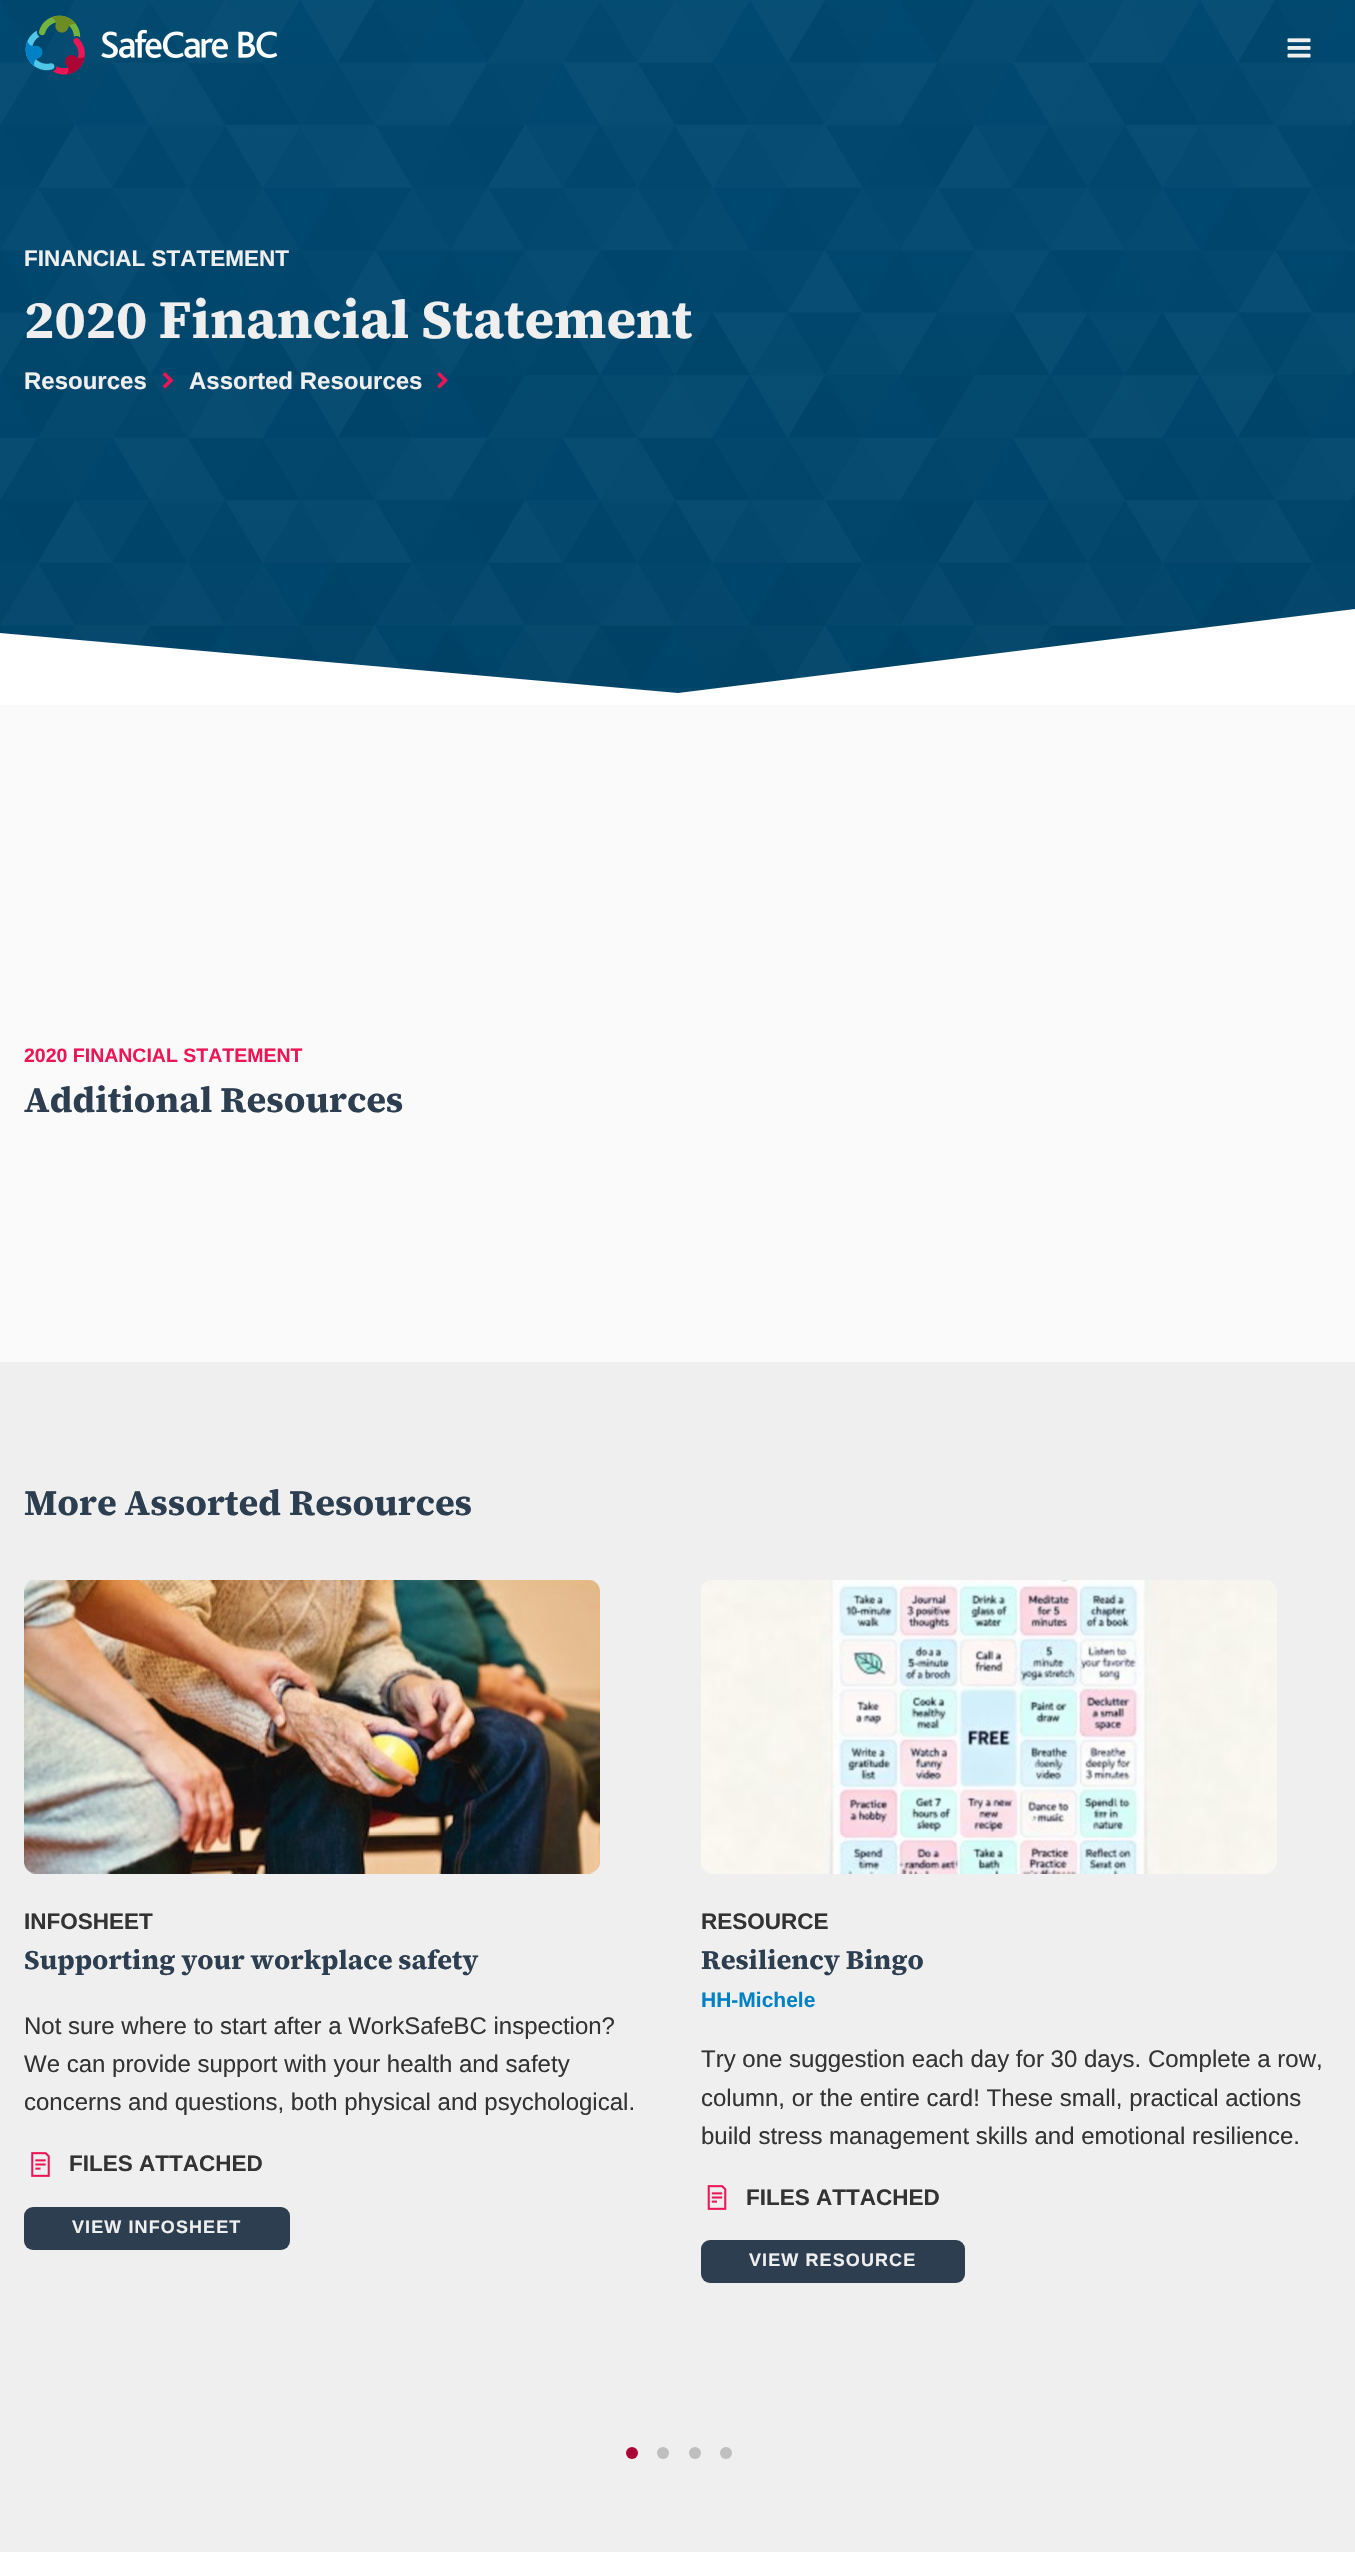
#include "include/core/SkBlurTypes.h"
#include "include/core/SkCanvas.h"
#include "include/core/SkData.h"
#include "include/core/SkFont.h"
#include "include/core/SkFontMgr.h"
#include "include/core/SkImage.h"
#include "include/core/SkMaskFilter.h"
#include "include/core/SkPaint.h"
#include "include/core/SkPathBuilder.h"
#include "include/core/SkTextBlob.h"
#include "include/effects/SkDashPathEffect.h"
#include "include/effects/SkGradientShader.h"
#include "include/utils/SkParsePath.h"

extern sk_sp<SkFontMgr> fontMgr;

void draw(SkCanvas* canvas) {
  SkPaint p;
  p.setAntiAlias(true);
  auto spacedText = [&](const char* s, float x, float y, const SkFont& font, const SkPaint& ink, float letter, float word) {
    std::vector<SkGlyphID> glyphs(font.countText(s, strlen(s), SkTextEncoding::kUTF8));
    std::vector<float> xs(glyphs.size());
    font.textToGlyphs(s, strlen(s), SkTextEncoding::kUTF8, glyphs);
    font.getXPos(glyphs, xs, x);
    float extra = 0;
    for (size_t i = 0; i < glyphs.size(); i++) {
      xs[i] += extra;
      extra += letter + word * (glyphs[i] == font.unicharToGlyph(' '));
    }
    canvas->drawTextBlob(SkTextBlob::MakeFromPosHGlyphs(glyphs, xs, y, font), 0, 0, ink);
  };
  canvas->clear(SkColorSetRGB(250, 250, 250));
  canvas->drawImageRect(SkImages::DeferredFromEncodedData(SkData::MakeFromFileName("images/3.png")), SkRect::MakeLTRB(0, 0, 1355, 693), SkSamplingOptions());
  canvas->drawImageRect(SkImages::DeferredFromEncodedData(SkData::MakeFromFileName("images/1.png")), SkRect::MakeLTRB(25, 15, 278, 75), SkSamplingOptions());
  canvas->drawImageRect(SkImages::DeferredFromEncodedData(SkData::MakeFromFileName("images/2.png")), SkRect::MakeLTRB(1287, 38, 1311, 58), SkSamplingOptions());
  canvas->drawImageRect(SkImages::DeferredFromEncodedData(SkData::MakeFromFileName("images/4.png")), SkRect::MakeLTRB(162, 372, 174, 389), SkSamplingOptions());
  canvas->drawImageRect(SkImages::DeferredFromEncodedData(SkData::MakeFromFileName("images/5.png")), SkRect::MakeLTRB(437, 372, 448, 389), SkSamplingOptions());
  p.setColor(SK_ColorWHITE);
  canvas->drawPath(SkPathBuilder().moveTo(0, 633).lineTo(678, 693).lineTo(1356, 609).lineTo(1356, 705).lineTo(0, 705).close().detach(), p);
  p.setColor(SkColorSetRGB(239, 239, 239));
  canvas->drawRect(SkRect::MakeLTRB(0, 1362, 1355, 2552), p);
  canvas->drawImageRect(SkImages::DeferredFromEncodedData(SkData::MakeFromFileName("images/6.png")), SkRect::MakeLTRB(24, 1580, 600, 1874), SkSamplingOptions());
  canvas->drawImageRect(SkImages::DeferredFromEncodedData(SkData::MakeFromFileName("images/7.png")), SkRect::MakeLTRB(31, 2152, 50, 2177), SkSamplingOptions());
  p.setColor(SkColorSetRGB(45, 62, 80));
  canvas->drawRoundRect(SkRect::MakeLTRB(24, 2207, 290, 2250), 9, 9, p);
  canvas->drawImageRect(SkImages::DeferredFromEncodedData(SkData::MakeFromFileName("images/8.png")), SkRect::MakeLTRB(701, 1580, 1277, 1874), SkSamplingOptions());
  canvas->drawImageRect(SkImages::DeferredFromEncodedData(SkData::MakeFromFileName("images/9.png")), SkRect::MakeLTRB(707, 2185, 727, 2210), SkSamplingOptions());
  canvas->drawRoundRect(SkRect::MakeLTRB(701, 2240, 965, 2283), 9, 9, p);
  p.setColor(SkColorSetRGB(170, 6, 53));
  canvas->drawCircle(632, 2453, 6, p);
  p.setColor(SkColorSetRGB(191, 191, 191));
  canvas->drawCircle(663, 2453, 6, p);
  canvas->drawCircle(695, 2453, 6, p);
  canvas->drawCircle(726, 2453, 6, p);
  SkFont font1(fontMgr->matchFamilyStyle("Liberation Sans", SkFontStyle::Bold()), 22.5f);
  font1.setSubpixel(true);
  p.setColor(SkColorSetRGB(239, 239, 239));
  canvas->drawString("FINANCIAL STATEMENT", 24, 266, font1, p);
  SkFont font2(fontMgr->matchFamilyStyle("Source Serif 4", SkFontStyle::Bold()), 54);
  font2.setSubpixel(true);
  canvas->drawString("2020 Financial Statement", 24, 338, font2, p);
  SkFont font3(fontMgr->matchFamilyStyle("Liberation Sans", SkFontStyle::Bold()), 24);
  font3.setSubpixel(true);
  canvas->drawString("Resources", 24, 389, font3, p);
  canvas->drawString("Assorted Resources", 189, 389, font3, p);
  SkFont font4(fontMgr->matchFamilyStyle("Liberation Sans", SkFontStyle::Bold()), 19.5f);
  font4.setSubpixel(true);
  p.setColor(SkColorSetRGB(236, 21, 86));
  canvas->drawString("2020 FINANCIAL STATEMENT", 24, 1062, font4, p);
  SkFont font5(fontMgr->matchFamilyStyle("Source Serif 4", SkFontStyle::Bold()), 36);
  font5.setSubpixel(true);
  p.setColor(SkColorSetRGB(45, 62, 80));
  canvas->drawString("Additional Resources", 24, 1112, font5, p);
  canvas->drawString("More Assorted Resources", 24, 1515, font5, p);
  p.setColor(SkColorSetRGB(51, 51, 51));
  canvas->drawString("INFOSHEET", 24, 1929, font1, p);
  SkFont font6(fontMgr->matchFamilyStyle("Source Serif 4", SkFontStyle::Bold()), 27);
  font6.setSubpixel(true);
  p.setColor(SkColorSetRGB(45, 62, 80));
  canvas->drawString("Supporting your workplace safety", 24, 1969, font6, p);
  SkFont font7(fontMgr->matchFamilyStyle("Liberation Sans", SkFontStyle::Normal()), 24);
  font7.setSubpixel(true);
  p.setColor(SkColorSetRGB(51, 51, 51));
  canvas->drawString("Not sure where to start after a WorkSafeBC inspection?", 24, 2034, font7, p);
  canvas->drawString("We can provide support with your health and safety", 24, 2072, font7, p);
  canvas->drawString("concerns and questions, both physical and psychological.", 24, 2110, font7, p);
  canvas->drawString("FILES ATTACHED", 69, 2171, font1, p);
  SkFont font8(fontMgr->matchFamilyStyle("Liberation Sans", SkFontStyle::Bold()), 18);
  font8.setSubpixel(true);
  p.setColor(SkColorSetRGB(239, 239, 239));
  spacedText("VIEW INFOSHEET", 72, 2233, font8, p, 1.1f, 0);
  p.setColor(SkColorSetRGB(51, 51, 51));
  canvas->drawString("RESOURCE", 701, 1929, font1, p);
  p.setColor(SkColorSetRGB(45, 62, 80));
  canvas->drawString("Resiliency Bingo", 701, 1969, font6, p);
  SkFont font9(fontMgr->matchFamilyStyle("Liberation Sans", SkFontStyle::Bold()), 21);
  font9.setSubpixel(true);
  p.setColor(SkColorSetRGB(0, 128, 197));
  canvas->drawString("HH-Michele", 701, 2007, font9, p);
  p.setColor(SkColorSetRGB(51, 51, 51));
  canvas->drawString("Try one suggestion each day for 30 days. Complete a row,", 701, 2067, font7, p);
  canvas->drawString("column, or the entire card! These small, practical actions", 701, 2106, font7, p);
  canvas->drawString("build stress management skills and emotional resilience.", 701, 2144, font7, p);
  canvas->drawString("FILES ATTACHED", 746, 2205, font1, p);
  p.setColor(SkColorSetRGB(239, 239, 239));
  spacedText("VIEW RESOURCE", 749, 2266, font8, p, 1.1f, 0);
}
